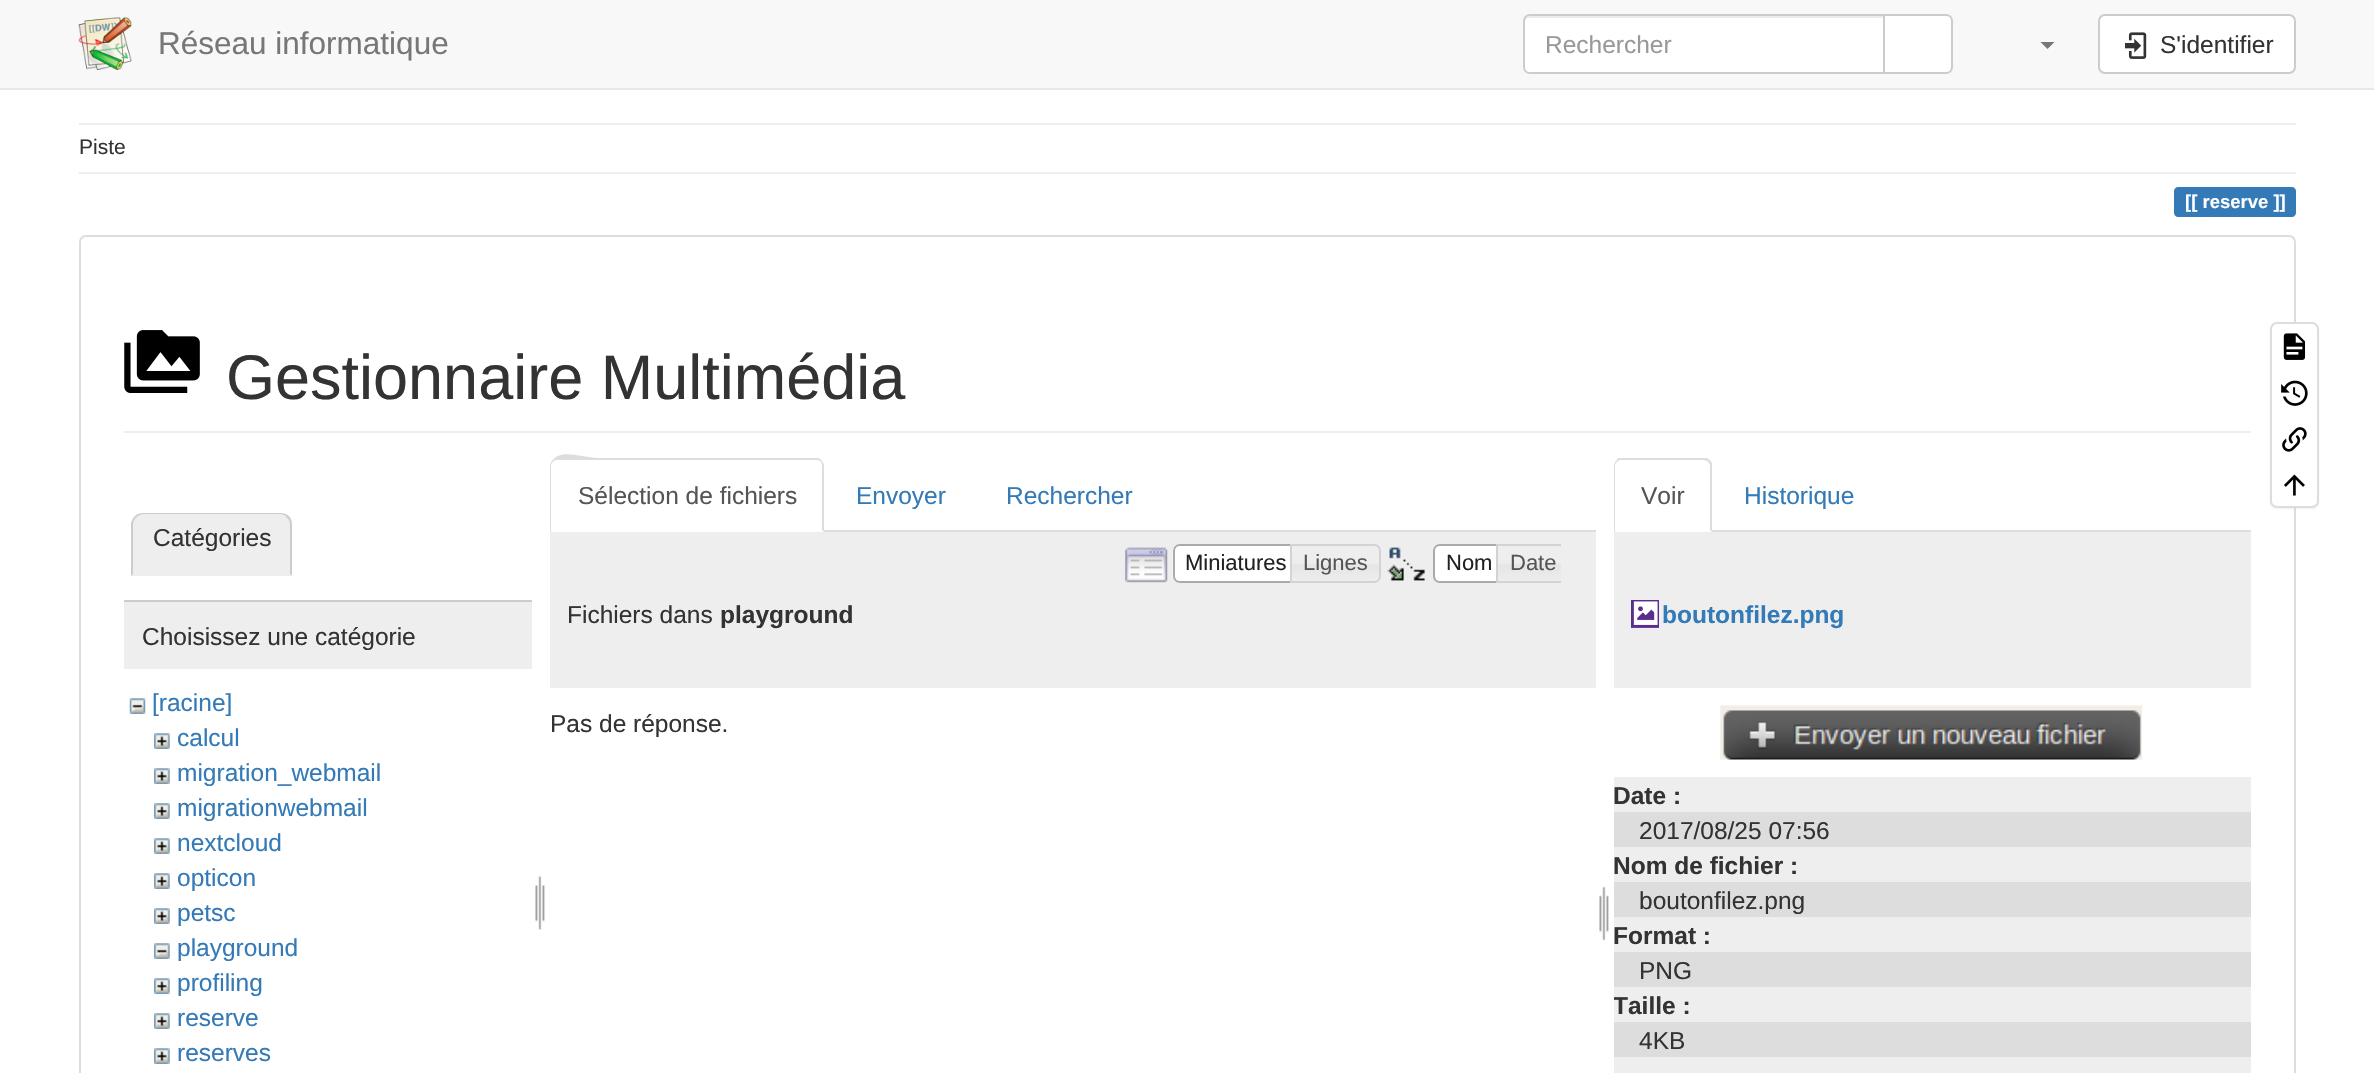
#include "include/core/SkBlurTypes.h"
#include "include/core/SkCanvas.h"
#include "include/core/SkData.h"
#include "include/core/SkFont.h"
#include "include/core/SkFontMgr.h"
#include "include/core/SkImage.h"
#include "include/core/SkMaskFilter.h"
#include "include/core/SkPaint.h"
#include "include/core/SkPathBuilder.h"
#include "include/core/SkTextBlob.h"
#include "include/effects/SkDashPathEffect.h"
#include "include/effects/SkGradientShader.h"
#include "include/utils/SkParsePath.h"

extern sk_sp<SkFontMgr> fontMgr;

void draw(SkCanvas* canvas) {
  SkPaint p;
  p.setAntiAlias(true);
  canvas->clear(SK_ColorWHITE);
  p.setColor(SkColorSetRGB(248, 248, 248));
  canvas->drawRect(SkRect::MakeLTRB(0, 0, 2374, 88), p);
  p.setColor(SkColorSetRGB(231, 231, 231));
  canvas->drawRect(SkRect::MakeLTRB(0, 88, 2374, 90), p);
  canvas->drawImageRect(SkImages::DeferredFromEncodedData(SkData::MakeFromFileName("images/1.png")), SkRect::MakeLTRB(78, 17, 132, 70), SkSamplingOptions());
  p.setColor(SK_ColorWHITE);
  canvas->drawPath(SkPathBuilder().moveTo(1530, 14).lineTo(1885, 14).lineTo(1885, 74).lineTo(1530, 74).cubicTo(1526, 74, 1523, 71, 1523, 67).lineTo(1523, 21).cubicTo(1523, 17, 1526, 14, 1530, 14).close().detach(), p);
  p.setColor(SkColorSetRGB(236, 236, 236));
  canvas->drawPath(SkPathBuilder().moveTo(1530, 18).lineTo(1883, 18).lineTo(1883, 16).lineTo(1529, 16).cubicTo(1525, 16, 1524, 20, 1524, 23).cubicTo(1524, 20, 1527, 18, 1530, 18).close().detach(), p);
  p.setStyle(SkPaint::kStroke_Style);
  p.setStrokeWidth(2);
  p.setColor(SkColorSetRGB(204, 204, 204));
  canvas->drawPath(SkPathBuilder().moveTo(1530, 15).lineTo(1884, 15).lineTo(1884, 73).lineTo(1530, 73).cubicTo(1526.5f, 73, 1524, 70.5f, 1524, 67).lineTo(1524, 21).cubicTo(1524, 17.5f, 1526.5f, 15, 1530, 15).close().detach(), p);
  p.setStyle(SkPaint::kFill_Style);
  p.setColor(SK_ColorWHITE);
  canvas->drawPath(SkPathBuilder().moveTo(1884, 15).lineTo(1946, 15).cubicTo(1949.5f, 15, 1952, 17.5f, 1952, 21).lineTo(1952, 67).cubicTo(1952, 70.5f, 1949.5f, 73, 1946, 73).lineTo(1884, 73).close().detach(), p);
  p.setStyle(SkPaint::kStroke_Style);
  p.setColor(SkColorSetRGB(204, 204, 204));
  canvas->drawPath(SkPathBuilder().moveTo(1884, 15).lineTo(1946, 15).cubicTo(1949.5f, 15, 1952, 17.5f, 1952, 21).lineTo(1952, 67).cubicTo(1952, 70.5f, 1949.5f, 73, 1946, 73).lineTo(1884, 73).close().detach(), p);
  p.setStyle(SkPaint::kFill_Style);
  p.setColor(SkColorSetRGB(119, 119, 119));
  canvas->drawPath(SkPathBuilder().moveTo(2040.5f, 42).lineTo(2054.5f, 42).lineTo(2047.5f, 49).close().detach(), p);
  p.setColor(SK_ColorWHITE);
  canvas->drawRoundRect(SkRect::MakeLTRB(2099, 15, 2295, 73), 6, 6, p);
  p.setStyle(SkPaint::kStroke_Style);
  p.setColor(SkColorSetRGB(204, 204, 204));
  canvas->drawRoundRect(SkRect::MakeLTRB(2099, 15, 2295, 73), 6, 6, p);
  canvas->drawImageRect(SkImages::DeferredFromEncodedData(SkData::MakeFromFileName("images/2.png")), SkRect::MakeLTRB(2124, 32, 2147, 59), SkSamplingOptions());
  p.setStyle(SkPaint::kFill_Style);
  p.setColor(SkColorSetRGB(238, 238, 238));
  canvas->drawRect(SkRect::MakeLTRB(79, 123, 2296, 125), p);
  canvas->drawRect(SkRect::MakeLTRB(79, 172, 2296, 174), p);
  p.setColor(SkColorSetRGB(51, 122, 183));
  canvas->drawPath(SkPathBuilder().moveTo(2178, 187).lineTo(2202, 187).lineTo(2202, 217).lineTo(2178, 217).cubicTo(2176, 217, 2174, 215, 2174, 213).lineTo(2174, 191).cubicTo(2174, 189, 2176, 187, 2178, 187).close().detach(), p);
  canvas->drawRect(SkRect::MakeLTRB(2202, 187, 2268, 217), p);
  canvas->drawPath(SkPathBuilder().moveTo(2268, 187).lineTo(2292, 187).cubicTo(2294, 187, 2296, 189, 2296, 191).lineTo(2296, 213).cubicTo(2296, 215, 2294, 217, 2292, 217).lineTo(2268, 217).close().detach(), p);
  p.setStyle(SkPaint::kStroke_Style);
  p.setColor(SkColorSetRGB(221, 221, 221));
  canvas->drawRoundRect(SkRect::MakeLTRB(80, 236, 2295, 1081), 6, 6, p);
  p.setStyle(SkPaint::kFill_Style);
  p.setColor(SkColorSetRGB(238, 238, 238));
  canvas->drawRect(SkRect::MakeLTRB(124, 431, 2251, 433), p);
  canvas->drawImageRect(SkImages::DeferredFromEncodedData(SkData::MakeFromFileName("images/3.png")), SkRect::MakeLTRB(124, 330, 200, 393), SkSamplingOptions());
  canvas->drawPath(SkPathBuilder().moveTo(143, 513).lineTo(280, 513).cubicTo(286.5f, 513, 292, 518.5f, 292, 525).lineTo(292, 576).lineTo(131, 576).lineTo(131, 525).cubicTo(131, 518.5f, 136.5f, 513, 143, 513).close().detach(), p);
  p.setColor(SkColorSetRGB(204, 204, 204));
  canvas->drawPath(SkPathBuilder().moveTo(144, 513).cubicTo(140, 513, 137, 514, 135, 516).lineTo(136, 518).cubicTo(138, 515, 141, 514, 144, 514).lineTo(280, 514).cubicTo(283, 514, 286, 515, 287, 518).lineTo(289, 516).cubicTo(286, 514, 284, 513, 280, 513).close().detach(), p);
  canvas->drawPath(SkPathBuilder().moveTo(292, 576).lineTo(292, 525).cubicTo(292, 522, 291, 518, 289, 516).lineTo(287, 518).cubicTo(289, 519, 290, 522, 290, 525).lineTo(290, 574).close().detach(), p);
  p.setColor(SkColorSetRGB(238, 238, 238));
  canvas->drawPath(SkPathBuilder().moveTo(292, 576).lineTo(131, 576).lineTo(133, 574).lineTo(290, 574).close().detach(), p);
  p.setColor(SkColorSetRGB(204, 204, 204));
  canvas->drawPath(SkPathBuilder().moveTo(131, 576).lineTo(133, 574).lineTo(133, 525).cubicTo(133, 522, 134, 519, 136, 518).lineTo(135, 516).cubicTo(133, 518, 132, 520, 131, 523).close().detach(), p);
  p.setColor(SkColorSetRGB(238, 238, 238));
  canvas->drawRect(SkRect::MakeLTRB(124, 602, 532, 669), p);
  p.setColor(SkColorSetRGB(204, 204, 204));
  canvas->drawRect(SkRect::MakeLTRB(124, 600, 532, 602), p);
  canvas->drawImageRect(SkImages::DeferredFromEncodedData(SkData::MakeFromFileName("images/4.png")), SkRect::MakeLTRB(129, 698, 146, 714), SkSamplingOptions());
  canvas->drawImageRect(SkImages::DeferredFromEncodedData(SkData::MakeFromFileName("images/5.png")), SkRect::MakeLTRB(154, 733, 170, 749), SkSamplingOptions());
  canvas->drawImageRect(SkImages::DeferredFromEncodedData(SkData::MakeFromFileName("images/5.png")), SkRect::MakeLTRB(154, 768, 170, 784), SkSamplingOptions());
  canvas->drawImageRect(SkImages::DeferredFromEncodedData(SkData::MakeFromFileName("images/5.png")), SkRect::MakeLTRB(154, 803, 170, 819), SkSamplingOptions());
  canvas->drawImageRect(SkImages::DeferredFromEncodedData(SkData::MakeFromFileName("images/5.png")), SkRect::MakeLTRB(154, 838, 170, 854), SkSamplingOptions());
  canvas->drawImageRect(SkImages::DeferredFromEncodedData(SkData::MakeFromFileName("images/5.png")), SkRect::MakeLTRB(154, 873, 170, 889), SkSamplingOptions());
  canvas->drawImageRect(SkImages::DeferredFromEncodedData(SkData::MakeFromFileName("images/5.png")), SkRect::MakeLTRB(154, 908, 170, 924), SkSamplingOptions());
  canvas->drawImageRect(SkImages::DeferredFromEncodedData(SkData::MakeFromFileName("images/6.png")), SkRect::MakeLTRB(154, 943, 170, 959), SkSamplingOptions());
  canvas->drawImageRect(SkImages::DeferredFromEncodedData(SkData::MakeFromFileName("images/5.png")), SkRect::MakeLTRB(154, 978, 170, 994), SkSamplingOptions());
  canvas->drawImageRect(SkImages::DeferredFromEncodedData(SkData::MakeFromFileName("images/5.png")), SkRect::MakeLTRB(154, 1013, 170, 1029), SkSamplingOptions());
  canvas->drawImageRect(SkImages::DeferredFromEncodedData(SkData::MakeFromFileName("images/5.png")), SkRect::MakeLTRB(154, 1048, 170, 1064), SkSamplingOptions());
  canvas->drawImageRect(SkImages::DeferredFromEncodedData(SkData::MakeFromFileName("images/7.png")), SkRect::MakeLTRB(535, 875, 545, 930), SkSamplingOptions());
  p.setColor(SkColorSetRGB(221, 221, 221));
  canvas->drawRect(SkRect::MakeLTRB(824, 530, 1596, 532), p);
  canvas->drawPath(SkPathBuilder().moveTo(556, 460).cubicTo(555, 460, 554, 461, 553, 462).lineTo(552, 461).cubicTo(561, 448, 582, 458, 598, 458).lineTo(819, 458).lineTo(822, 461).lineTo(821, 462).cubicTo(820, 461, 819, 460, 817, 460).close().detach(), p);
  canvas->drawPath(SkPathBuilder().moveTo(822, 461).cubicTo(823, 462, 824, 464, 824, 466).lineTo(824, 532).lineTo(822, 530).lineTo(822, 466).cubicTo(822, 465, 822, 463, 821, 462).close().detach(), p);
  canvas->drawPath(SkPathBuilder().moveTo(550, 532).lineTo(550, 466).cubicTo(550, 464, 551, 462, 552, 461).lineTo(553, 462).cubicTo(552, 463, 551, 464, 551, 466).lineTo(551, 530).lineTo(552, 530).close().detach(), p);
  p.setColor(SkColorSetRGB(238, 238, 238));
  canvas->drawRect(SkRect::MakeLTRB(550, 532, 1596, 688), p);
  canvas->drawImageRect(SkImages::DeferredFromEncodedData(SkData::MakeFromFileName("images/8.png")), SkRect::MakeLTRB(1125, 547, 1168, 583), SkSamplingOptions());
  p.setColor(SK_ColorWHITE);
  canvas->drawPath(SkPathBuilder().moveTo(1180, 544).lineTo(1300, 544).lineTo(1300, 583).lineTo(1180, 583).cubicTo(1176, 583, 1173, 580, 1173, 576).lineTo(1173, 551).cubicTo(1173, 547, 1176, 544, 1180, 544).close().detach(), p);
  canvas->drawImageRect(SkImages::DeferredFromEncodedData(SkData::MakeFromFileName("images/9.png")), SkRect::MakeLTRB(1172, 545, 1176, 582), SkSamplingOptions());
  p.setStyle(SkPaint::kStroke_Style);
  p.setColor(SkColorSetRGB(170, 170, 170));
  canvas->drawPath(SkPathBuilder().moveTo(1180, 545).lineTo(1299, 545).lineTo(1299, 582).lineTo(1180, 582).cubicTo(1176.5f, 582, 1174, 579.5f, 1174, 576).lineTo(1174, 551).cubicTo(1174, 547.5f, 1176.5f, 545, 1180, 545).close().detach(), p);
  canvas->drawImageRect(SkImages::DeferredFromEncodedData(SkData::MakeFromFileName("images/10.png")), SkRect::MakeLTRB(1289, 545, 1381, 582), SkSamplingOptions());
  p.setColor(SkColorSetRGB(211, 211, 211));
  canvas->drawPath(SkPathBuilder().moveTo(1291, 545).lineTo(1374, 545).cubicTo(1377.5f, 545, 1380, 547.5f, 1380, 551).lineTo(1380, 576).cubicTo(1380, 579.5f, 1377.5f, 582, 1374, 582).lineTo(1291, 582).close().detach(), p);
  canvas->drawImageRect(SkImages::DeferredFromEncodedData(SkData::MakeFromFileName("images/11.png")), SkRect::MakeLTRB(1387, 547, 1425, 581), SkSamplingOptions());
  p.setStyle(SkPaint::kFill_Style);
  p.setColor(SK_ColorWHITE);
  canvas->drawPath(SkPathBuilder().moveTo(1440, 545).lineTo(1504, 545).lineTo(1504, 582).lineTo(1440, 582).cubicTo(1436.5f, 582, 1434, 579.5f, 1434, 576).lineTo(1434, 551).cubicTo(1434, 547.5f, 1436.5f, 545, 1440, 545).close().detach(), p);
  p.setStyle(SkPaint::kStroke_Style);
  p.setColor(SkColorSetRGB(170, 170, 170));
  canvas->drawPath(SkPathBuilder().moveTo(1440, 545).lineTo(1504, 545).lineTo(1504, 582).lineTo(1440, 582).cubicTo(1436.5f, 582, 1434, 579.5f, 1434, 576).lineTo(1434, 551).cubicTo(1434, 547.5f, 1436.5f, 545, 1440, 545).close().detach(), p);
  canvas->drawImageRect(SkImages::DeferredFromEncodedData(SkData::MakeFromFileName("images/12.png")), SkRect::MakeLTRB(1498, 546, 1561, 581), SkSamplingOptions());
  canvas->save();
  canvas->clipRect(SkRect::MakeLTRB(1111, 544, 1561, 583));
  p.setColor(SkColorSetRGB(211, 211, 211));
  canvas->drawPath(SkPathBuilder().moveTo(1497, 545).lineTo(1563, 545).cubicTo(1566.5f, 545, 1569, 547.5f, 1569, 551).lineTo(1569, 576).cubicTo(1569, 579.5f, 1566.5f, 582, 1563, 582).lineTo(1497, 582).close().detach(), p);
  canvas->restore();
  canvas->drawImageRect(SkImages::DeferredFromEncodedData(SkData::MakeFromFileName("images/13.png")), SkRect::MakeLTRB(1599, 886, 1609, 941), SkSamplingOptions());
  p.setStyle(SkPaint::kFill_Style);
  p.setColor(SkColorSetRGB(221, 221, 221));
  canvas->drawRect(SkRect::MakeLTRB(1712, 530, 2251, 532), p);
  canvas->drawPath(SkPathBuilder().moveTo(1620, 460).cubicTo(1619, 460, 1618, 461, 1617, 462).lineTo(1616, 461).lineTo(1618, 458).lineTo(1707, 458).lineTo(1710, 460).lineTo(1708, 462).cubicTo(1707, 461, 1706, 460, 1704, 460).close().detach(), p);
  canvas->drawPath(SkPathBuilder().moveTo(1712, 463).lineTo(1712, 532).lineTo(1710, 530).lineTo(1710, 466).cubicTo(1710, 464, 1709, 463, 1708, 462).lineTo(1710, 460).close().detach(), p);
  canvas->drawPath(SkPathBuilder().moveTo(1614, 532).lineTo(1614, 466).cubicTo(1614, 464, 1615, 462, 1616, 461).lineTo(1617, 462).cubicTo(1616, 463, 1615, 464, 1615, 466).lineTo(1615, 530).lineTo(1616, 530).close().detach(), p);
  p.setColor(SkColorSetRGB(238, 238, 238));
  canvas->drawRect(SkRect::MakeLTRB(1614, 532, 2251, 688), p);
  canvas->drawImageRect(SkImages::DeferredFromEncodedData(SkData::MakeFromFileName("images/14.png")), SkRect::MakeLTRB(1631, 600, 1659, 628), SkSamplingOptions());
  canvas->drawImageRect(SkImages::DeferredFromEncodedData(SkData::MakeFromFileName("images/15.png")), SkRect::MakeLTRB(1720, 705, 2142, 760), SkSamplingOptions());
  canvas->drawRect(SkRect::MakeLTRB(1614, 777, 2251, 812), p);
  p.setColor(SkColorSetRGB(221, 221, 221));
  canvas->drawRect(SkRect::MakeLTRB(1614, 812, 2251, 847), p);
  p.setColor(SkColorSetRGB(238, 238, 238));
  canvas->drawRect(SkRect::MakeLTRB(1614, 847, 2251, 882), p);
  p.setColor(SkColorSetRGB(221, 221, 221));
  canvas->drawRect(SkRect::MakeLTRB(1614, 882, 2251, 917), p);
  p.setColor(SkColorSetRGB(238, 238, 238));
  canvas->drawRect(SkRect::MakeLTRB(1614, 917, 2251, 952), p);
  p.setColor(SkColorSetRGB(221, 221, 221));
  canvas->drawRect(SkRect::MakeLTRB(1614, 952, 2251, 987), p);
  p.setColor(SkColorSetRGB(238, 238, 238));
  canvas->drawRect(SkRect::MakeLTRB(1614, 987, 2251, 1022), p);
  p.setColor(SkColorSetRGB(221, 221, 221));
  canvas->drawRect(SkRect::MakeLTRB(1614, 1022, 2251, 1057), p);
  p.setColor(SkColorSetRGB(238, 238, 238));
  canvas->drawRect(SkRect::MakeLTRB(1614, 1057, 2251, 1073), p);
  p.setColor(SkColorSetARGB(13, 0, 0, 0));
  p.setMaskFilter(SkMaskFilter::MakeBlur(kNormal_SkBlurStyle, 1));
  canvas->drawRoundRect(SkRect::MakeLTRB(2270, 324, 2319, 509), 7, 7, p);
  p.setMaskFilter(nullptr);
  p.setColor(SK_ColorWHITE);
  canvas->drawRoundRect(SkRect::MakeLTRB(2271, 323, 2318, 507), 6, 6, p);
  p.setStyle(SkPaint::kStroke_Style);
  p.setColor(SkColorSetRGB(221, 221, 221));
  canvas->drawRoundRect(SkRect::MakeLTRB(2271, 323, 2318, 507), 6, 6, p);
  canvas->drawImageRect(SkImages::DeferredFromEncodedData(SkData::MakeFromFileName("images/16.png")), SkRect::MakeLTRB(2283, 333, 2306, 360), SkSamplingOptions());
  canvas->drawImageRect(SkImages::DeferredFromEncodedData(SkData::MakeFromFileName("images/17.png")), SkRect::MakeLTRB(2281, 380, 2308, 406), SkSamplingOptions());
  canvas->drawImageRect(SkImages::DeferredFromEncodedData(SkData::MakeFromFileName("images/18.png")), SkRect::MakeLTRB(2282, 427, 2307, 452), SkSamplingOptions());
  canvas->drawImageRect(SkImages::DeferredFromEncodedData(SkData::MakeFromFileName("images/19.png")), SkRect::MakeLTRB(2284, 474, 2305, 496), SkSamplingOptions());
  SkFont font1(fontMgr->matchFamilyStyle("Liberation Sans", SkFontStyle::Normal()), 31.5f);
  font1.setSubpixel(true);
  p.setStyle(SkPaint::kFill_Style);
  p.setColor(SkColorSetRGB(119, 119, 119));
  canvas->drawString("Réseau informatique", 158, 54, font1, p);
  SkFont font2(fontMgr->matchFamilyStyle("Liberation Sans", SkFontStyle::Normal()), 24.5f);
  font2.setSubpixel(true);
  p.setColor(SkColorSetRGB(153, 153, 153));
  canvas->drawString("Rechercher", 1545, 53, font2, p);
  p.setColor(SkColorSetRGB(51, 51, 51));
  canvas->drawString("S'identifier", 2160, 53, font2, p);
  SkFont font3(fontMgr->matchFamilyStyle("Liberation Sans", SkFontStyle::Normal()), 21);
  font3.setSubpixel(true);
  canvas->drawString("Piste", 79, 154, font3, p);
  SkFont font4(fontMgr->matchFamilyStyle("Liberation Sans", SkFontStyle::Bold()), 18.5f);
  font4.setSubpixel(true);
  p.setColor(SK_ColorWHITE);
  canvas->drawString("[[ reserve ]]", 2185, 208, font4, p);
  SkFont font5(fontMgr->matchFamilyStyle("Liberation Sans", SkFontStyle::Normal()), 63);
  font5.setSubpixel(true);
  p.setColor(SkColorSetRGB(51, 51, 51));
  canvas->drawString("Gestionnaire Multimédia", 226, 399, font5, p);
  canvas->drawString("Catégories", 153, 546, font2, p);
  canvas->drawString("Choisissez une catégorie", 142, 645, font2, p);
  p.setColor(SkColorSetRGB(51, 122, 183));
  canvas->drawString("[racine]", 152, 711, font2, p);
  canvas->drawString("calcul", 177, 746, font2, p);
  canvas->drawString("migration_webmail", 177, 781, font2, p);
  canvas->drawString("migrationwebmail", 177, 816, font2, p);
  canvas->drawString("nextcloud", 177, 851, font2, p);
  canvas->drawString("opticon", 177, 886, font2, p);
  canvas->drawString("petsc", 177, 921, font2, p);
  canvas->drawString("playground", 177, 956, font2, p);
  canvas->drawString("profiling", 177, 991, font2, p);
  canvas->drawString("reserve", 177, 1026, font2, p);
  canvas->drawString("reserves", 177, 1061, font2, p);
  p.setColor(SkColorSetRGB(85, 85, 85));
  canvas->drawString("Sélection de fichiers", 578, 504, font2, p);
  p.setColor(SkColorSetRGB(51, 122, 183));
  canvas->drawString("Envoyer", 856, 504, font2, p);
  canvas->drawString("Rechercher", 1006, 504, font2, p);
  SkFont font6(fontMgr->matchFamilyStyle("Liberation Sans", SkFontStyle::Normal()), 22);
  font6.setSubpixel(true);
  p.setColor(SkColorSetRGB(33, 33, 33));
  canvas->drawString("Miniatures", 1185, 570, font6, p);
  p.setColor(SkColorSetRGB(85, 85, 85));
  canvas->drawString("Lignes", 1303, 570, font6, p);
  p.setColor(SkColorSetRGB(33, 33, 33));
  canvas->drawString("Nom", 1446, 570, font6, p);
  p.setColor(SkColorSetRGB(85, 85, 85));
  canvas->drawString("Date", 1510, 570, font6, p);
  p.setColor(SkColorSetRGB(51, 51, 51));
  canvas->drawString("Fichiers dans", 567, 623, font2, p);
  SkFont font7(fontMgr->matchFamilyStyle("Liberation Sans", SkFontStyle::Bold()), 24.5f);
  font7.setSubpixel(true);
  canvas->drawString("playground", 720, 623, font7, p);
  canvas->drawString("Pas de réponse.", 550, 732, font2, p);
  p.setColor(SkColorSetRGB(85, 85, 85));
  canvas->drawString("Voir", 1641, 504, font2, p);
  p.setColor(SkColorSetRGB(51, 122, 183));
  canvas->drawString("Historique", 1744, 504, font2, p);
  canvas->drawString("boutonfilez.png", 1662, 623, font7, p);
  p.setColor(SkColorSetRGB(51, 51, 51));
  canvas->drawString("Date :", 1613, 804, font7, p);
  canvas->drawString("2017/08/25 07:56", 1639, 839, font2, p);
  canvas->drawString("Nom de fichier :", 1613, 874, font7, p);
  canvas->drawString("boutonfilez.png", 1639, 909, font2, p);
  canvas->drawString("Format :", 1613, 944, font7, p);
  canvas->drawString("PNG", 1639, 979, font2, p);
  canvas->save();
  canvas->clipRect(SkRect::MakeLTRB(1614, 705, 2251, 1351));
  canvas->drawString("Taille :", 1613, 1014, font7, p);
  canvas->restore();
  canvas->drawString("4KB", 1639, 1049, font2, p);
}
